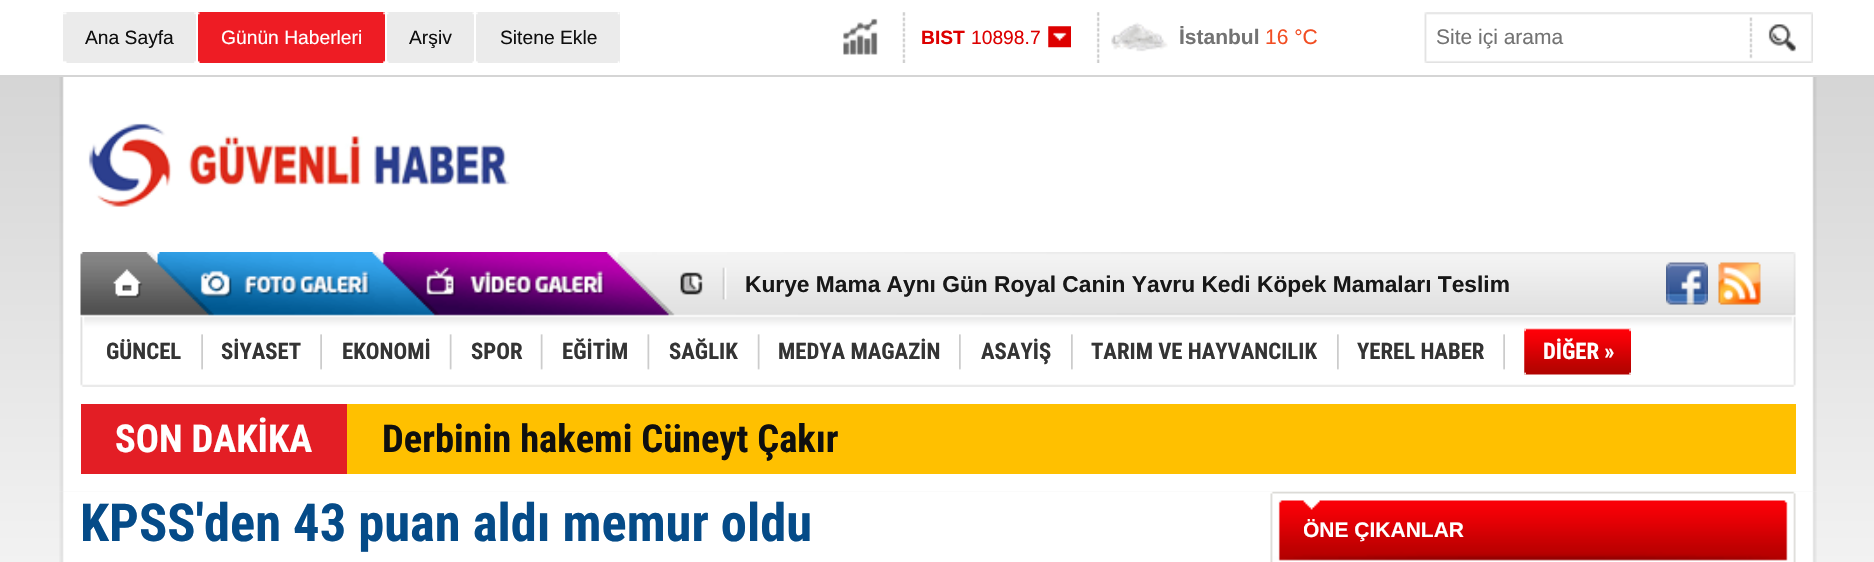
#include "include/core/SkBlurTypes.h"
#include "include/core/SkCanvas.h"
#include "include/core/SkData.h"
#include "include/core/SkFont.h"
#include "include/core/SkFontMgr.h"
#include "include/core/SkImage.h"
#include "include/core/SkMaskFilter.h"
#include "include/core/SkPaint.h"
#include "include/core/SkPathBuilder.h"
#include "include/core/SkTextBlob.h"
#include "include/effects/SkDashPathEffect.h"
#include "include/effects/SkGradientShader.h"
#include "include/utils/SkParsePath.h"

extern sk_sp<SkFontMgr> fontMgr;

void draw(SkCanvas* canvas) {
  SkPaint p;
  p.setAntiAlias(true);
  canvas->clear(SK_ColorWHITE);
  canvas->drawImageRect(SkImages::DeferredFromEncodedData(SkData::MakeFromFileName("images/1.png")), SkRect::MakeLTRB(0, 77, 1874, 562), SkSamplingOptions());
  p.setColor(SkColorSetRGB(213, 213, 213));
  canvas->drawRect(SkRect::MakeLTRB(0, 75, 1874, 77), p);
  canvas->drawImageRect(SkImages::DeferredFromEncodedData(SkData::MakeFromFileName("images/2.png")), SkRect::MakeLTRB(843, 12, 1813, 63), SkSamplingOptions());
  p.setColor(SkColorSetRGB(235, 235, 235));
  canvas->drawRect(SkRect::MakeLTRB(63, 12, 196, 63), p);
  canvas->drawImageRect(SkImages::DeferredFromEncodedData(SkData::MakeFromFileName("images/3.png")), SkRect::MakeLTRB(63, 12, 67, 63), SkSamplingOptions());
  canvas->drawImageRect(SkImages::DeferredFromEncodedData(SkData::MakeFromFileName("images/4.png")), SkRect::MakeLTRB(194, 12, 196, 63), SkSamplingOptions());
  p.setColor(SkColorSetRGB(238, 28, 36));
  canvas->drawRect(SkRect::MakeLTRB(198, 12, 385, 63), p);
  canvas->drawImageRect(SkImages::DeferredFromEncodedData(SkData::MakeFromFileName("images/5.png")), SkRect::MakeLTRB(198, 12, 200, 63), SkSamplingOptions());
  canvas->drawImageRect(SkImages::DeferredFromEncodedData(SkData::MakeFromFileName("images/6.png")), SkRect::MakeLTRB(383, 12, 385, 63), SkSamplingOptions());
  p.setColor(SkColorSetRGB(235, 235, 235));
  canvas->drawRect(SkRect::MakeLTRB(387, 12, 474, 63), p);
  canvas->drawImageRect(SkImages::DeferredFromEncodedData(SkData::MakeFromFileName("images/7.png")), SkRect::MakeLTRB(387, 12, 389, 63), SkSamplingOptions());
  canvas->drawImageRect(SkImages::DeferredFromEncodedData(SkData::MakeFromFileName("images/8.png")), SkRect::MakeLTRB(472, 12, 474, 63), SkSamplingOptions());
  canvas->drawRect(SkRect::MakeLTRB(476, 12, 620, 63), p);
  canvas->drawImageRect(SkImages::DeferredFromEncodedData(SkData::MakeFromFileName("images/9.png")), SkRect::MakeLTRB(476, 12, 478, 63), SkSamplingOptions());
  canvas->drawImageRect(SkImages::DeferredFromEncodedData(SkData::MakeFromFileName("images/10.png")), SkRect::MakeLTRB(617, 12, 620, 63), SkSamplingOptions());
  canvas->drawImageRect(SkImages::DeferredFromEncodedData(SkData::MakeFromFileName("images/11.png")), SkRect::MakeLTRB(1048, 26, 1071, 48), SkSamplingOptions());
  canvas->drawImageRect(SkImages::DeferredFromEncodedData(SkData::MakeFromFileName("images/12.png")), SkRect::MakeLTRB(1111, 22, 1168, 52), SkSamplingOptions());
  canvas->drawImageRect(SkImages::DeferredFromEncodedData(SkData::MakeFromFileName("images/13.png")), SkRect::MakeLTRB(59, 77, 1817, 492), SkSamplingOptions());
  canvas->drawImageRect(SkImages::DeferredFromEncodedData(SkData::MakeFromFileName("images/14.png")), SkRect::MakeLTRB(80, 252, 1796, 387), SkSamplingOptions());
  canvas->drawImageRect(SkImages::DeferredFromEncodedData(SkData::MakeFromFileName("images/15.png")), SkRect::MakeLTRB(88, 123, 510, 207), SkSamplingOptions());
  canvas->drawImageRect(SkImages::DeferredFromEncodedData(SkData::MakeFromFileName("images/16.png")), SkRect::MakeLTRB(1666, 262, 1708, 305), SkSamplingOptions());
  canvas->drawImageRect(SkImages::DeferredFromEncodedData(SkData::MakeFromFileName("images/17.png")), SkRect::MakeLTRB(1718, 262, 1761, 305), SkSamplingOptions());
  canvas->drawImageRect(SkImages::DeferredFromEncodedData(SkData::MakeFromFileName("images/18.png")), SkRect::MakeLTRB(201, 334, 203, 370), SkSamplingOptions());
  canvas->drawImageRect(SkImages::DeferredFromEncodedData(SkData::MakeFromFileName("images/18.png")), SkRect::MakeLTRB(320, 334, 322, 370), SkSamplingOptions());
  canvas->drawImageRect(SkImages::DeferredFromEncodedData(SkData::MakeFromFileName("images/19.png")), SkRect::MakeLTRB(449, 334, 452, 370), SkSamplingOptions());
  canvas->drawImageRect(SkImages::DeferredFromEncodedData(SkData::MakeFromFileName("images/19.png")), SkRect::MakeLTRB(540, 334, 543, 370), SkSamplingOptions());
  canvas->drawImageRect(SkImages::DeferredFromEncodedData(SkData::MakeFromFileName("images/20.png")), SkRect::MakeLTRB(647, 334, 650, 370), SkSamplingOptions());
  canvas->drawImageRect(SkImages::DeferredFromEncodedData(SkData::MakeFromFileName("images/19.png")), SkRect::MakeLTRB(757, 334, 760, 370), SkSamplingOptions());
  canvas->drawImageRect(SkImages::DeferredFromEncodedData(SkData::MakeFromFileName("images/21.png")), SkRect::MakeLTRB(959, 334, 961, 370), SkSamplingOptions());
  canvas->drawImageRect(SkImages::DeferredFromEncodedData(SkData::MakeFromFileName("images/21.png")), SkRect::MakeLTRB(1071, 334, 1073, 370), SkSamplingOptions());
  canvas->drawImageRect(SkImages::DeferredFromEncodedData(SkData::MakeFromFileName("images/21.png")), SkRect::MakeLTRB(1337, 334, 1339, 370), SkSamplingOptions());
  canvas->drawImageRect(SkImages::DeferredFromEncodedData(SkData::MakeFromFileName("images/18.png")), SkRect::MakeLTRB(1503, 334, 1505, 370), SkSamplingOptions());
  canvas->drawImageRect(SkImages::DeferredFromEncodedData(SkData::MakeFromFileName("images/22.png")), SkRect::MakeLTRB(1524, 328, 1631, 375), SkSamplingOptions());
  canvas->drawImageRect(SkImages::DeferredFromEncodedData(SkData::MakeFromFileName("images/23.png")), SkRect::MakeLTRB(1524, 328, 1526, 375), SkSamplingOptions());
  canvas->drawImageRect(SkImages::DeferredFromEncodedData(SkData::MakeFromFileName("images/24.png")), SkRect::MakeLTRB(1629, 328, 1631, 375), SkSamplingOptions());
  p.setColor(SkColorSetRGB(255, 192, 0));
  canvas->drawRect(SkRect::MakeLTRB(347, 404, 1796, 474), p);
  p.setColor(SkColorSetRGB(227, 30, 37));
  canvas->drawRect(SkRect::MakeLTRB(81, 404, 347, 474), p);
  canvas->drawImageRect(SkImages::DeferredFromEncodedData(SkData::MakeFromFileName("images/25.png")), SkRect::MakeLTRB(59, 492, 1817, 562), SkSamplingOptions());
  canvas->drawImageRect(SkImages::DeferredFromEncodedData(SkData::MakeFromFileName("images/26.png")), SkRect::MakeLTRB(1270, 491, 1796, 562), SkSamplingOptions());
  SkFont font1(fontMgr->matchFamilyStyle("Liberation Sans", SkFontStyle::Normal()), 19.25f);
  font1.setSubpixel(true);
  p.setColor(SkColorSetRGB(15, 15, 15));
  canvas->drawString("Ana Sayfa", 85, 44, font1, p);
  p.setColor(SK_ColorWHITE);
  canvas->drawString("Günün Haberleri", 221, 44, font1, p);
  p.setColor(SkColorSetRGB(15, 15, 15));
  canvas->drawString("Arşiv", 409, 44, font1, p);
  canvas->drawString("Sitene Ekle", 500, 44, font1, p);
  SkFont font2(fontMgr->matchFamilyStyle("Liberation Sans", SkFontStyle::Bold()), 19.25f);
  font2.setSubpixel(true);
  p.setColor(SkColorSetRGB(221, 0, 0));
  canvas->drawString("BIST", 921, 44, font2, p);
  canvas->drawString("10898.7", 971, 44, font1, p);
  SkFont font3(fontMgr->matchFamilyStyle("Liberation Sans", SkFontStyle::Bold()), 21);
  font3.setSubpixel(true);
  p.setColor(SkColorSetRGB(115, 115, 115));
  canvas->drawString("İstanbul", 1179, 44, font3, p);
  SkFont font4(fontMgr->matchFamilyStyle("Liberation Sans", SkFontStyle::Normal()), 21);
  font4.setSubpixel(true);
  p.setColor(SkColorSetRGB(242, 78, 35));
  canvas->drawString("16 °C", 1265, 44, font4, p);
  p.setColor(SkColorSetRGB(115, 115, 115));
  canvas->drawString("Site içi arama", 1436, 44, font4, p);
  SkFont font5(fontMgr->matchFamilyStyle("Liberation Sans", SkFontStyle::Bold()), 22.75f);
  font5.setSubpixel(true);
  p.setColor(SkColorSetRGB(23, 23, 23));
  canvas->drawString("Kurye Mama Aynı Gün Royal Canin Yavru Kedi Köpek Mamaları Teslim", 745, 292, font5, p);
  SkFont font6(fontMgr->matchFamilyStyle("Roboto Condensed", SkFontStyle::Bold()), 22.75f);
  font6.setSubpixel(true);
  p.setColor(SkColorSetRGB(52, 52, 52));
  canvas->drawString("GÜNCEL", 106, 359, font6, p);
  canvas->drawString("SİYASET", 221, 359, font6, p);
  canvas->drawString("EKONOMİ", 342, 359, font6, p);
  canvas->drawString("SPOR", 471, 359, font6, p);
  canvas->drawString("EĞİTİM", 562, 359, font6, p);
  canvas->drawString("SAĞLIK", 669, 359, font6, p);
  canvas->drawString("MEDYA MAGAZİN", 778, 359, font6, p);
  canvas->drawString("ASAYİŞ", 981, 359, font6, p);
  canvas->drawString("TARIM VE HAYVANCILIK", 1091, 359, font6, p);
  canvas->drawString("YEREL HABER", 1357, 359, font6, p);
  p.setColor(SK_ColorWHITE);
  canvas->drawString("DİĞER »", 1543, 359, font6, p);
  SkFont font7(fontMgr->matchFamilyStyle("Roboto Condensed", SkFontStyle::Bold()), 38.5f);
  font7.setSubpixel(true);
  canvas->drawString("SON DAKİKA", 115, 452, font7, p);
  p.setColor(SkColorSetRGB(15, 15, 15));
  canvas->drawString("Derbinin hakemi Cüneyt Çakır", 382, 452, font7, p);
  SkFont font8(fontMgr->matchFamilyStyle("Roboto Condensed", SkFontStyle::Bold()), 52.5f);
  font8.setSubpixel(true);
  p.setColor(SkColorSetRGB(5, 75, 136));
  canvas->drawString("KPSS'den 43 puan aldı memur oldu", 80, 541, font8, p);
  canvas->save();
  canvas->clipRect(SkRect::MakeLTRB(1304, 501, 1762, 560));
  p.setColor(SK_ColorWHITE);
  canvas->drawString("ÖNE ÇIKANLAR", 1303, 537, font3, p);
  canvas->restore();
}
